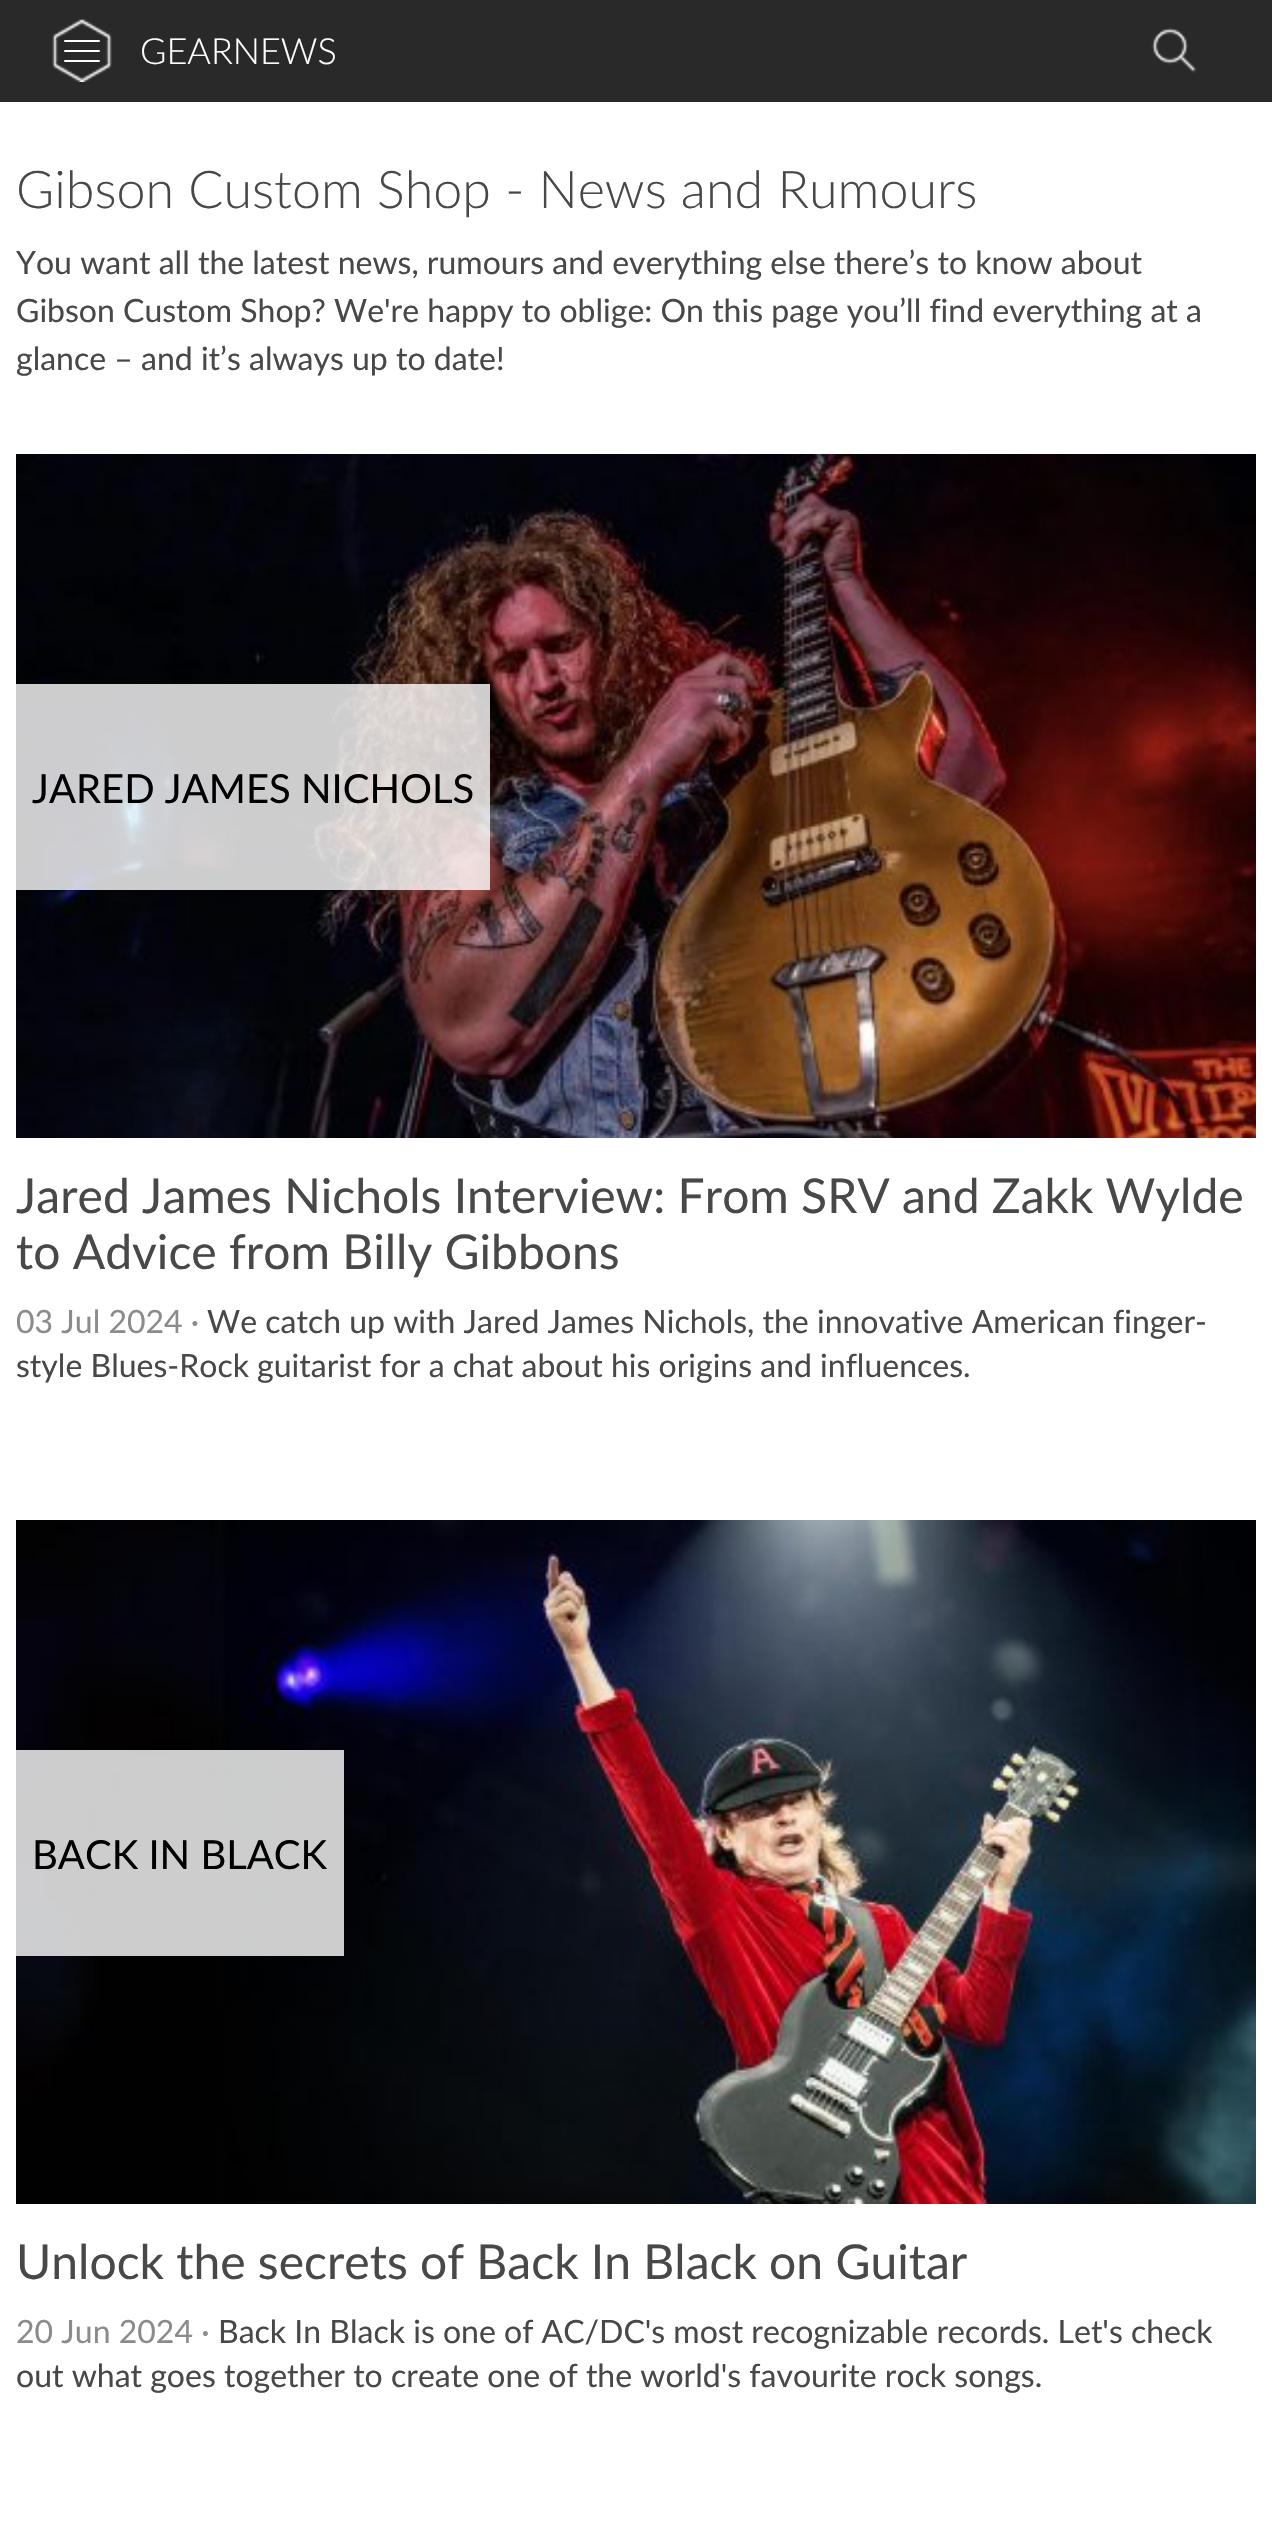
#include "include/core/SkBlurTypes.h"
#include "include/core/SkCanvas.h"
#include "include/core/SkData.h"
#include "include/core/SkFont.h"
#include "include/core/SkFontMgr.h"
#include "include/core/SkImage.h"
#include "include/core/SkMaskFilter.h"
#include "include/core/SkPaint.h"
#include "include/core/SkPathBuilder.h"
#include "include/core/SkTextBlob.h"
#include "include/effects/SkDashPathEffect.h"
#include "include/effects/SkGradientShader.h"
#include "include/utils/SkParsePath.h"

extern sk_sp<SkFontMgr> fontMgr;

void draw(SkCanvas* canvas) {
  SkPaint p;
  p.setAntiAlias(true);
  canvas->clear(SK_ColorWHITE);
  p.setColor(SkColorSetRGB(41, 41, 41));
  canvas->drawRect(SkRect::MakeLTRB(0, 0, 1272, 102), p);
  canvas->drawImageRect(SkImages::DeferredFromEncodedData(SkData::MakeFromFileName("images/1.png")), SkRect::MakeLTRB(52, 19, 112, 82), SkSamplingOptions());
  p.setColor(SK_ColorWHITE);
  canvas->drawRoundRect(SkRect::MakeLTRB(64, 50, 100, 52), 1, 1, p);
  canvas->drawRoundRect(SkRect::MakeLTRB(64, 40, 100, 42), 1, 1, p);
  canvas->drawRoundRect(SkRect::MakeLTRB(64, 60, 100, 62), 1, 1, p);
  canvas->drawImageRect(SkImages::DeferredFromEncodedData(SkData::MakeFromFileName("images/2.png")), SkRect::MakeLTRB(1151, 27, 1197, 73), SkSamplingOptions());
  canvas->drawImageRect(SkImages::DeferredFromEncodedData(SkData::MakeFromFileName("images/3.png")), SkRect::MakeLTRB(16, 454, 1256, 1138), SkSamplingOptions());
  p.setColor(SkColorSetARGB(204, 255, 255, 255));
  canvas->drawRect(SkRect::MakeLTRB(16, 684, 490, 890), p);
  canvas->drawImageRect(SkImages::DeferredFromEncodedData(SkData::MakeFromFileName("images/4.png")), SkRect::MakeLTRB(16, 1520, 1256, 2204), SkSamplingOptions());
  canvas->drawRect(SkRect::MakeLTRB(16, 1750, 344, 1956), p);
  SkFont font1(fontMgr->matchFamilyStyle("Lato", SkFontStyle(300, SkFontStyle::kNormal_Width, SkFontStyle::kUpright_Slant)), 36);
  font1.setSubpixel(true);
  p.setColor(SK_ColorWHITE);
  canvas->drawString("GEARNEWS", 140, 64, font1, p);
  SkFont font2(fontMgr->matchFamilyStyle("Lato", SkFontStyle(300, SkFontStyle::kNormal_Width, SkFontStyle::kUpright_Slant)), 52);
  font2.setSubpixel(true);
  p.setColor(SkColorSetRGB(72, 72, 72));
  canvas->drawString("Gibson Custom Shop - News and Rumours", 16, 208, font2, p);
  SkFont font3(fontMgr->matchFamilyStyle("Lato", SkFontStyle::Normal()), 32);
  font3.setSubpixel(true);
  canvas->drawString("You want all the latest news, rumours and everything else there’s to know about", 16, 274, font3, p);
  canvas->drawString("Gibson Custom Shop? We're happy to oblige: On this page you’ll find everything at a", 16, 322, font3, p);
  canvas->drawString("glance – and it’s always up to date!", 16, 370, font3, p);
  SkFont font4(fontMgr->matchFamilyStyle("Lato", SkFontStyle::Normal()), 40);
  font4.setSubpixel(true);
  p.setColor(SK_ColorBLACK);
  canvas->drawString("JARED JAMES NICHOLS", 32, 803, font4, p);
  SkFont font5(fontMgr->matchFamilyStyle("Lato", SkFontStyle::Normal()), 48);
  font5.setSubpixel(true);
  p.setColor(SkColorSetRGB(72, 72, 72));
  canvas->drawString("Jared James Nichols Interview: From SRV and Zakk Wylde", 16, 1213, font5, p);
  canvas->drawString("to Advice from Billy Gibbons", 16, 1269, font5, p);
  p.setColor(SkColorSetRGB(139, 139, 139));
  canvas->drawString("03 Jul 2024 ·", 16, 1333, font3, p);
  p.setColor(SkColorSetRGB(72, 72, 72));
  canvas->drawString("We catch up with Jared James Nichols, the innovative American finger-", 207, 1333, font3, p);
  canvas->drawString("style Blues-Rock guitarist for a chat about his origins and influences.", 16, 1377, font3, p);
  p.setColor(SK_ColorBLACK);
  canvas->drawString("BACK IN BLACK", 32, 1869, font4, p);
  p.setColor(SkColorSetRGB(72, 72, 72));
  canvas->drawString("Unlock the secrets of Back In Black on Guitar", 16, 2279, font5, p);
  p.setColor(SkColorSetRGB(139, 139, 139));
  canvas->drawString("20 Jun 2024 ·", 16, 2343, font3, p);
  p.setColor(SkColorSetRGB(72, 72, 72));
  canvas->drawString("Back In Black is one of AC/DC's most recognizable records. Let's check", 218, 2343, font3, p);
  canvas->drawString("out what goes together to create one of the world's favourite rock songs.", 16, 2387, font3, p);
}
